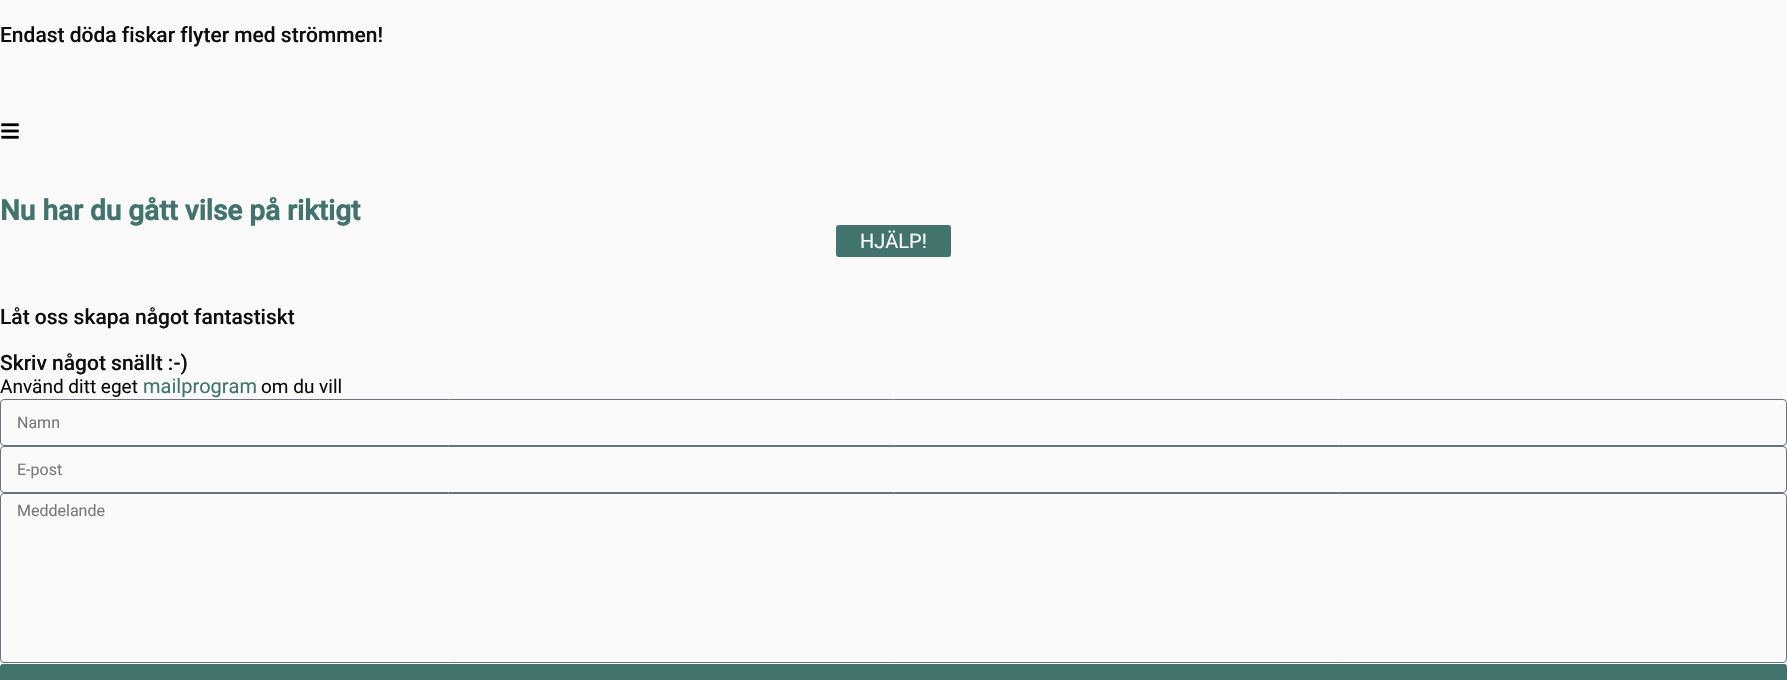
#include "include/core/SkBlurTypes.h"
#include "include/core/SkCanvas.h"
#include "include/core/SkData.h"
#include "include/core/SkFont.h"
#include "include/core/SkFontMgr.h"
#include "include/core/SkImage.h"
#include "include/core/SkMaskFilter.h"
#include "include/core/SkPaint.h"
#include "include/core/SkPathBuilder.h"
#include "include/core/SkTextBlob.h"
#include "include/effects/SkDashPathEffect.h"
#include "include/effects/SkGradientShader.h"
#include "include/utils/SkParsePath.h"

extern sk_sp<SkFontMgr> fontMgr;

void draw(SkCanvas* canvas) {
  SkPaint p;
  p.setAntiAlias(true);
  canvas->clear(SkColorSetRGB(250, 250, 250));
  canvas->drawImageRect(SkImages::DeferredFromEncodedData(SkData::MakeFromFileName("images/1.png")), SkRect::MakeLTRB(1, 123, 19, 139), SkSamplingOptions());
  p.setColor(SkColorSetRGB(66, 115, 109));
  canvas->drawRoundRect(SkRect::MakeLTRB(836, 225, 951, 257), 3, 3, p);
  p.setStyle(SkPaint::kStroke_Style);
  p.setStrokeWidth(1);
  p.setColor(SkColorSetRGB(105, 114, 125));
  canvas->drawRoundRect(SkRect::MakeLTRB(0.5f, 399.5f, 1786.5f, 445.5f), 3.5f, 3.5f, p);
  canvas->drawRoundRect(SkRect::MakeLTRB(0.5f, 446.5f, 1786.5f, 492.5f), 3.5f, 3.5f, p);
  canvas->drawRoundRect(SkRect::MakeLTRB(0.5f, 493.5f, 1786.5f, 662.5f), 3.5f, 3.5f, p);
  p.setStyle(SkPaint::kFill_Style);
  p.setColor(SkColorSetRGB(66, 115, 109));
  canvas->drawRoundRect(SkRect::MakeLTRB(0, 664, 1787, 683), 3, 3, p);
  SkFont font1(fontMgr->matchFamilyStyle("Roboto", SkFontStyle(500, SkFontStyle::kNormal_Width, SkFontStyle::kUpright_Slant)), 21);
  font1.setSubpixel(true);
  p.setColor(SkColorSetRGB(13, 13, 13));
  canvas->drawString("Endast döda fiskar flyter med strömmen!", 0, 42, font1, p);
  SkFont font2(fontMgr->matchFamilyStyle("Roboto", SkFontStyle::Bold()), 28);
  font2.setSubpixel(true);
  p.setColor(SkColorSetRGB(66, 115, 109));
  canvas->drawString("Nu har du gått vilse på riktigt", 0, 220, font2, p);
  SkFont font3(fontMgr->matchFamilyStyle("Roboto", SkFontStyle::Normal()), 20);
  font3.setSubpixel(true);
  p.setColor(SkColorSetRGB(250, 250, 250));
  canvas->drawString("HJÄLP!", 860, 248, font3, p);
  p.setColor(SkColorSetRGB(13, 13, 13));
  canvas->drawString("Låt oss skapa något fantastiskt", 0, 324, font1, p);
  canvas->drawString("Skriv något snällt :-)", 0, 370, font1, p);
  SkFont font4(fontMgr->matchFamilyStyle("Roboto", SkFontStyle::Normal()), 19);
  font4.setSubpixel(true);
  canvas->drawString("Använd ditt eget", 0, 393, font4, p);
  p.setColor(SkColorSetRGB(66, 115, 109));
  canvas->drawString("mailprogram", 143, 393, font3, p);
  p.setColor(SkColorSetRGB(13, 13, 13));
  canvas->drawString("om du vill", 261, 393, font4, p);
  SkFont font5(fontMgr->matchFamilyStyle("Roboto", SkFontStyle::Normal()), 16);
  font5.setSubpixel(true);
  p.setColor(SkColorSetRGB(119, 120, 122));
  canvas->drawString("Namn", 17, 428, font5, p);
  canvas->drawString("E-post", 17, 475, font5, p);
  canvas->drawString("Meddelande", 17, 516, font5, p);
}
